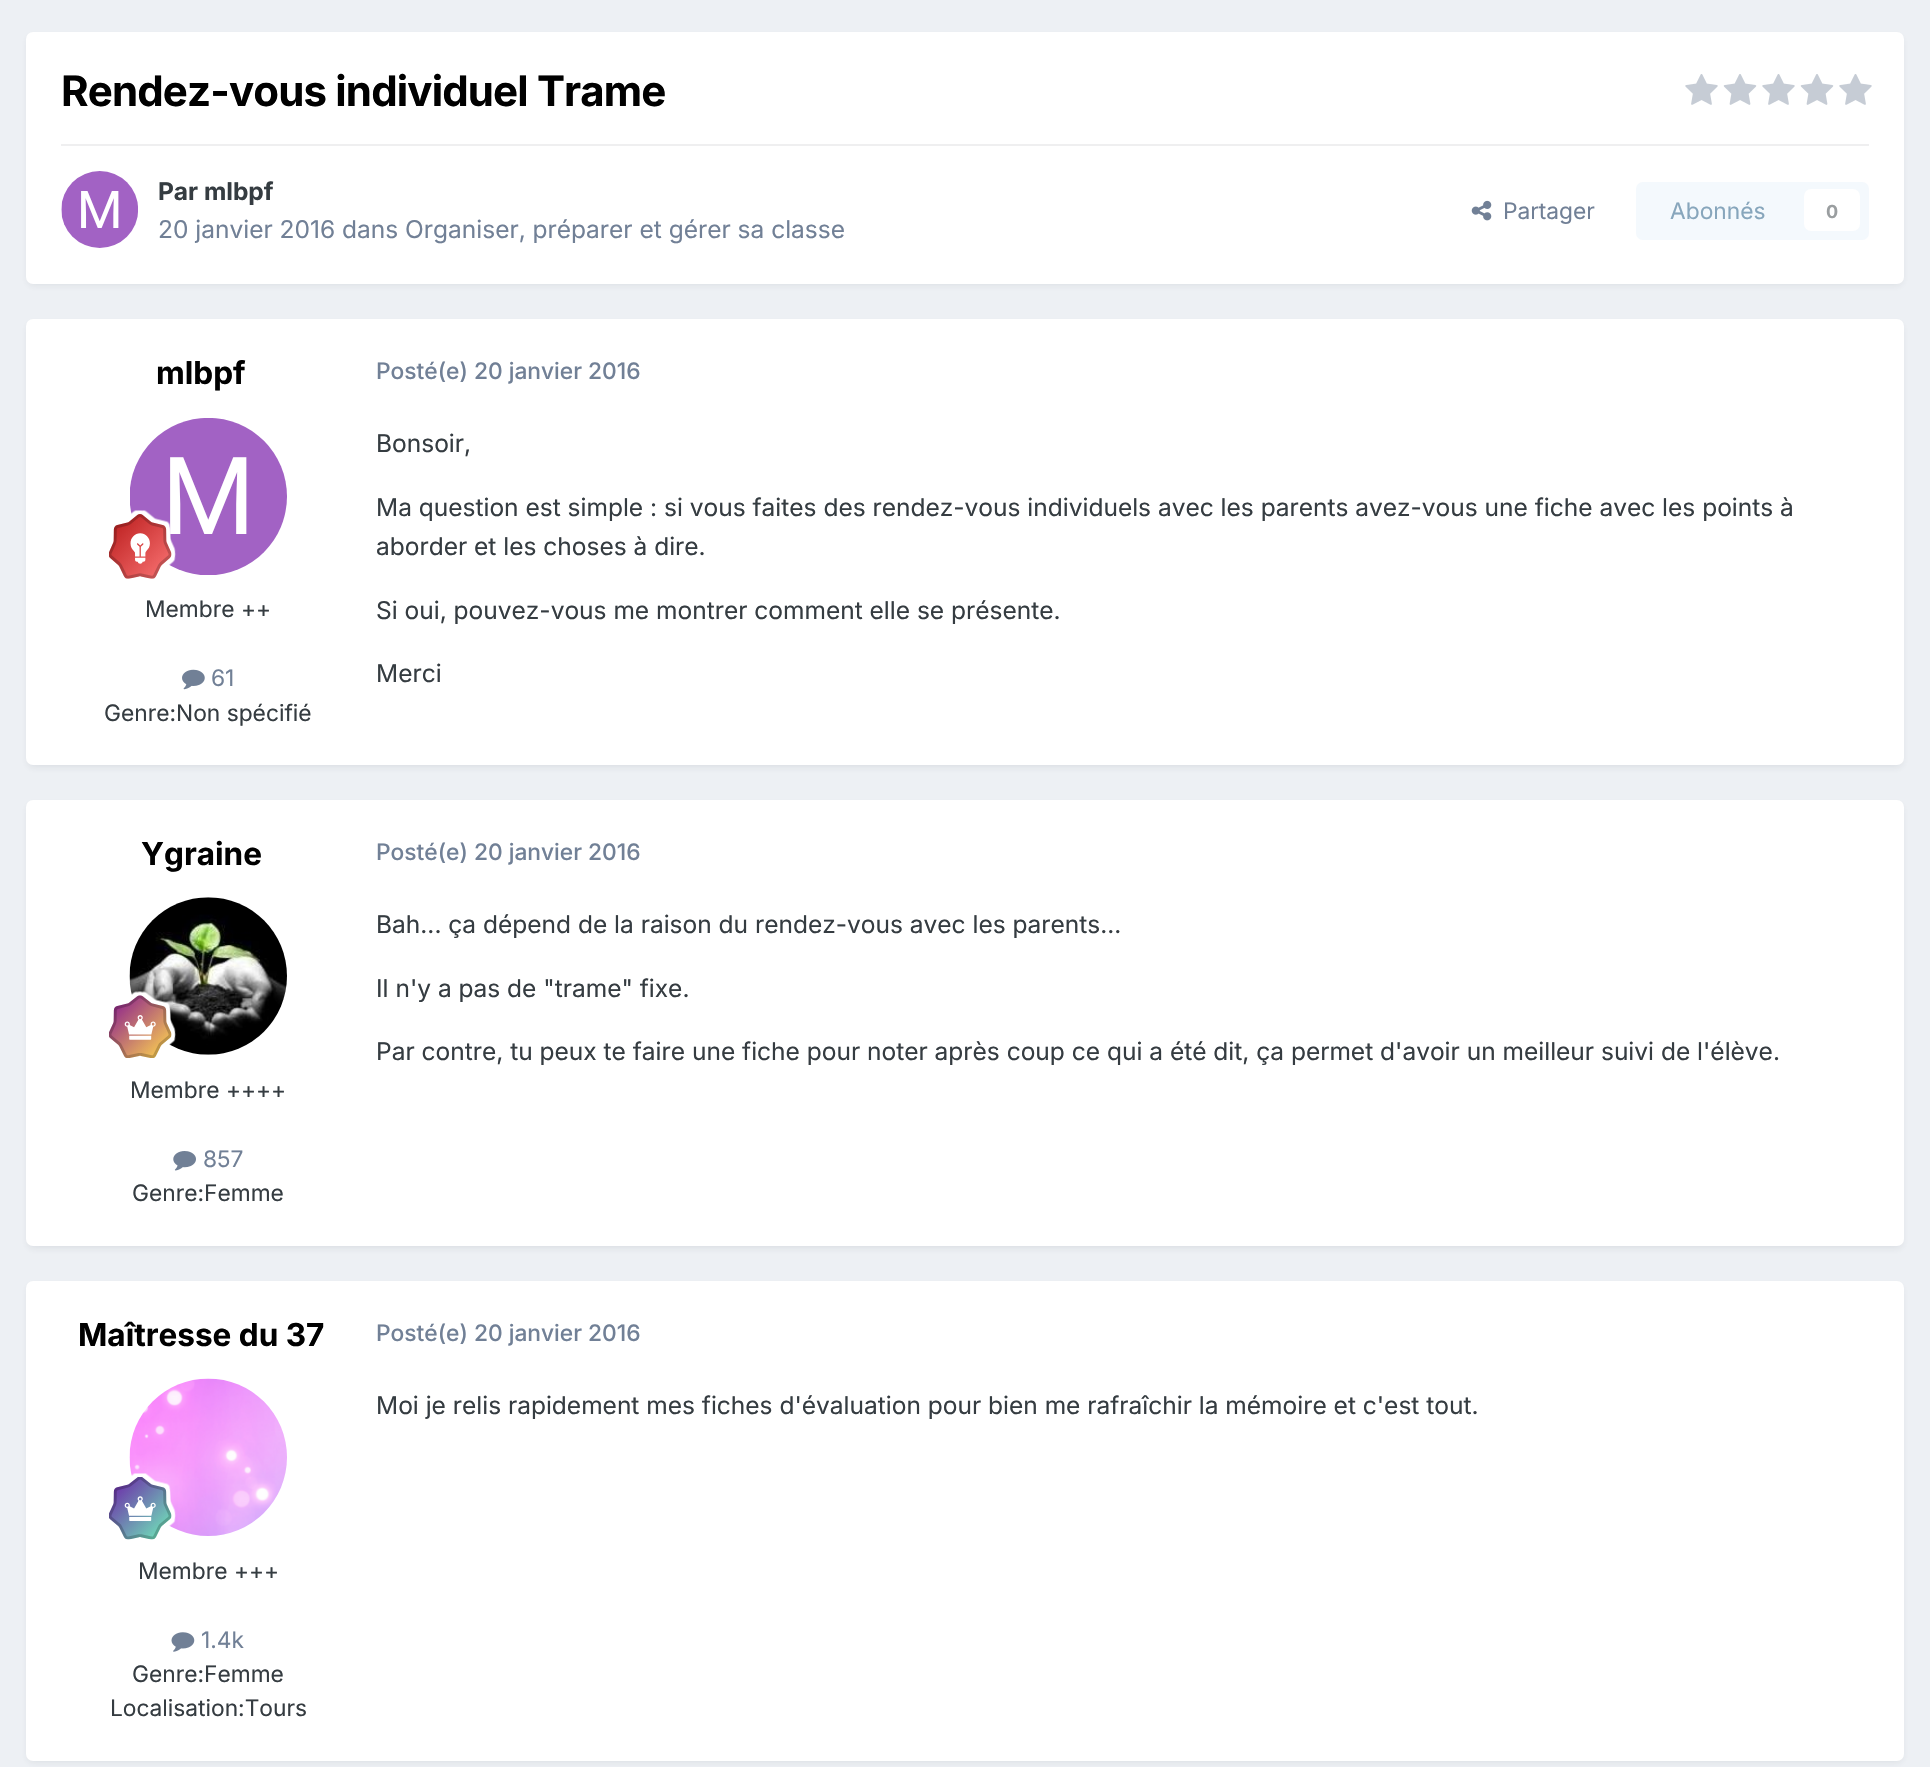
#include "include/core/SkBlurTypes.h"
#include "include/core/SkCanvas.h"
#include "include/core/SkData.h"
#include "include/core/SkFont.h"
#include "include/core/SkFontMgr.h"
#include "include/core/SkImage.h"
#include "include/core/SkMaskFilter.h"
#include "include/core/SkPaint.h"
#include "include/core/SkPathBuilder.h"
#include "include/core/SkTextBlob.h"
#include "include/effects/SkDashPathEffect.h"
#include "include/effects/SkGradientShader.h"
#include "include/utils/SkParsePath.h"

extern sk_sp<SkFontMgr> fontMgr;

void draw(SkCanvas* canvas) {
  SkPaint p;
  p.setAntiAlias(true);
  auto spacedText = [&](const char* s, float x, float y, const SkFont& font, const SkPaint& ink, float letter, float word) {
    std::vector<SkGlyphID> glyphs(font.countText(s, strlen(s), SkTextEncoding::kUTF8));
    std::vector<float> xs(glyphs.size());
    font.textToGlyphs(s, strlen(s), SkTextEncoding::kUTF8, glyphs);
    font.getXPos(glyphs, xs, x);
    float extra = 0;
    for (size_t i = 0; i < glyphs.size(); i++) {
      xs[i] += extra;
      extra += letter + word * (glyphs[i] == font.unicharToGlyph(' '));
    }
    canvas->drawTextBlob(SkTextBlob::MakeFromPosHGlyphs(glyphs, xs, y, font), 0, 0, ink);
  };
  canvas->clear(SkColorSetRGB(237, 240, 244));
  p.setColor(SkColorSetARGB(26, 45, 55, 72));
  p.setMaskFilter(SkMaskFilter::MakeBlur(kNormal_SkBlurStyle, 3.5f));
  canvas->drawRoundRect(SkRect::MakeLTRB(28, 37, 1902, 285), 5, 5, p);
  p.setMaskFilter(nullptr);
  p.setColor(SK_ColorWHITE);
  canvas->drawRoundRect(SkRect::MakeLTRB(26, 32, 1904, 284), 7, 7, p);
  canvas->drawImageRect(SkImages::DeferredFromEncodedData(SkData::MakeFromFileName("images/1.png")), SkRect::MakeLTRB(1685, 74, 1718, 105), SkSamplingOptions());
  canvas->drawImageRect(SkImages::DeferredFromEncodedData(SkData::MakeFromFileName("images/2.png")), SkRect::MakeLTRB(1723, 74, 1757, 105), SkSamplingOptions());
  canvas->drawImageRect(SkImages::DeferredFromEncodedData(SkData::MakeFromFileName("images/1.png")), SkRect::MakeLTRB(1762, 74, 1795, 105), SkSamplingOptions());
  canvas->drawImageRect(SkImages::DeferredFromEncodedData(SkData::MakeFromFileName("images/2.png")), SkRect::MakeLTRB(1800, 74, 1834, 105), SkSamplingOptions());
  canvas->drawImageRect(SkImages::DeferredFromEncodedData(SkData::MakeFromFileName("images/1.png")), SkRect::MakeLTRB(1839, 74, 1872, 105), SkSamplingOptions());
  p.setColor(SkColorSetRGB(239, 239, 240));
  canvas->drawRect(SkRect::MakeLTRB(61, 144, 1869, 146), p);
  canvas->drawImageRect(SkImages::DeferredFromEncodedData(SkData::MakeFromFileName("images/3.png")), SkRect::MakeLTRB(61, 171, 138, 248), SkSamplingOptions());
  canvas->drawImageRect(SkImages::DeferredFromEncodedData(SkData::MakeFromFileName("images/4.png")), SkRect::MakeLTRB(1471, 200, 1492, 221), SkSamplingOptions());
  p.setColor(SkColorSetRGB(244, 249, 253));
  canvas->drawRoundRect(SkRect::MakeLTRB(1636, 182, 1869, 240), 7, 7, p);
  p.setColor(SK_ColorWHITE);
  canvas->drawRoundRect(SkRect::MakeLTRB(1804, 189, 1860, 231), 7, 7, p);
  p.setColor(SkColorSetARGB(26, 45, 55, 72));
  p.setMaskFilter(SkMaskFilter::MakeBlur(kNormal_SkBlurStyle, 3.5f));
  canvas->drawRoundRect(SkRect::MakeLTRB(28, 324, 1902, 767), 5, 5, p);
  p.setMaskFilter(nullptr);
  p.setColor(SK_ColorWHITE);
  canvas->drawRoundRect(SkRect::MakeLTRB(26, 319, 1904, 765), 7, 7, p);
  canvas->drawImageRect(SkImages::DeferredFromEncodedData(SkData::MakeFromFileName("images/5.png")), SkRect::MakeLTRB(130, 418, 287, 575), SkSamplingOptions());
  canvas->drawImageRect(SkImages::DeferredFromEncodedData(SkData::MakeFromFileName("images/6.png")), SkRect::MakeLTRB(109, 510, 176, 579), SkSamplingOptions());
  canvas->drawImageRect(SkImages::DeferredFromEncodedData(SkData::MakeFromFileName("images/7.png")), SkRect::MakeLTRB(182, 669, 205, 690), SkSamplingOptions());
  p.setColor(SkColorSetARGB(26, 45, 55, 72));
  p.setMaskFilter(SkMaskFilter::MakeBlur(kNormal_SkBlurStyle, 3.5f));
  canvas->drawRoundRect(SkRect::MakeLTRB(28, 805, 1902, 1248), 5, 5, p);
  p.setMaskFilter(nullptr);
  p.setColor(SK_ColorWHITE);
  canvas->drawRoundRect(SkRect::MakeLTRB(26, 800, 1904, 1246), 7, 7, p);
  canvas->drawImageRect(SkImages::DeferredFromEncodedData(SkData::MakeFromFileName("images/8.png")), SkRect::MakeLTRB(129, 897, 287, 1055), SkSamplingOptions());
  canvas->drawImageRect(SkImages::DeferredFromEncodedData(SkData::MakeFromFileName("images/9.png")), SkRect::MakeLTRB(109, 991, 176, 1058), SkSamplingOptions());
  canvas->drawImageRect(SkImages::DeferredFromEncodedData(SkData::MakeFromFileName("images/10.png")), SkRect::MakeLTRB(173, 1151, 196, 1171), SkSamplingOptions());
  p.setColor(SkColorSetARGB(26, 45, 55, 72));
  p.setMaskFilter(SkMaskFilter::MakeBlur(kNormal_SkBlurStyle, 3.5f));
  canvas->drawRoundRect(SkRect::MakeLTRB(28, 1286, 1902, 1762), 5, 5, p);
  p.setMaskFilter(nullptr);
  p.setColor(SK_ColorWHITE);
  canvas->drawRoundRect(SkRect::MakeLTRB(26, 1281, 1904, 1761), 7, 7, p);
  canvas->drawImageRect(SkImages::DeferredFromEncodedData(SkData::MakeFromFileName("images/11.png")), SkRect::MakeLTRB(129, 1378, 287, 1536), SkSamplingOptions());
  canvas->drawImageRect(SkImages::DeferredFromEncodedData(SkData::MakeFromFileName("images/12.png")), SkRect::MakeLTRB(109, 1473, 176, 1540), SkSamplingOptions());
  canvas->drawImageRect(SkImages::DeferredFromEncodedData(SkData::MakeFromFileName("images/13.png")), SkRect::MakeLTRB(171, 1632, 195, 1652), SkSamplingOptions());
  SkFont font1(fontMgr->matchFamilyStyle("Inter", SkFontStyle::Bold()), 42);
  font1.setSubpixel(true);
  p.setColor(SK_ColorBLACK);
  spacedText("Rendez-vous individuel Trame", 61, 106, font1, p, -0.85f, 0);
  SkFont font2(fontMgr->matchFamilyStyle("Inter", SkFontStyle::Bold()), 24.5f);
  font2.setSubpixel(true);
  p.setColor(SkColorSetRGB(53, 60, 65));
  canvas->drawString("Par mlbpf", 158, 200, font2, p);
  SkFont font3(fontMgr->matchFamilyStyle("Inter", SkFontStyle::Normal()), 24.5f);
  font3.setSubpixel(true);
  p.setColor(SkColorSetRGB(113, 128, 150));
  canvas->drawString("20 janvier 2016 dans Organiser, préparer et gérer sa classe", 158, 238, font3, p);
  SkFont font4(fontMgr->matchFamilyStyle("Inter", SkFontStyle::Normal()), 22.75f);
  font4.setSubpixel(true);
  canvas->drawString("Partager", 1503, 219, font4, p);
  p.setColor(SkColorSetRGB(135, 166, 188));
  canvas->drawString("Abonnés", 1670, 219, font4, p);
  SkFont font5(fontMgr->matchFamilyStyle("Inter", SkFontStyle::Bold()), 18);
  font5.setSubpixel(true);
  p.setColor(SkColorSetRGB(154, 158, 160));
  canvas->drawString("0", 1826, 218, font5, p);
  SkFont font6(fontMgr->matchFamilyStyle("Inter", SkFontStyle::Bold()), 31.5f);
  font6.setSubpixel(true);
  p.setColor(SK_ColorBLACK);
  canvas->drawString("mlbpf", 156, 384, font6, p);
  p.setColor(SkColorSetRGB(53, 60, 65));
  canvas->drawString("Membre ++", 145, 617, font4, p);
  p.setColor(SkColorSetRGB(113, 128, 150));
  canvas->drawString("61", 211, 686, font4, p);
  p.setColor(SkColorSetRGB(53, 60, 65));
  canvas->drawString("Genre:Non spécifié", 104, 721, font4, p);
  SkFont font7(fontMgr->matchFamilyStyle("Inter", SkFontStyle(500, SkFontStyle::kNormal_Width, SkFontStyle::kUpright_Slant)), 22.75f);
  font7.setSubpixel(true);
  p.setColor(SkColorSetRGB(113, 128, 150));
  canvas->drawString("Posté(e) 20 janvier 2016", 376, 379, font7, p);
  p.setColor(SkColorSetRGB(53, 60, 65));
  canvas->drawString("Bonsoir,", 376, 452, font3, p);
  canvas->drawString("Ma question est simple : si vous faites des rendez-vous individuels avec les parents avez-vous une fiche avec les points à", 376, 516, font3, p);
  canvas->drawString("aborder et les choses à dire.", 376, 555, font3, p);
  canvas->drawString("Si oui, pouvez-vous me montrer comment elle se présente.", 376, 619, font3, p);
  canvas->drawString("Merci", 376, 682, font3, p);
  p.setColor(SK_ColorBLACK);
  canvas->drawString("Ygraine", 141, 865, font6, p);
  p.setColor(SkColorSetRGB(53, 60, 65));
  canvas->drawString("Membre ++++", 130, 1098, font4, p);
  p.setColor(SkColorSetRGB(113, 128, 150));
  canvas->drawString("857", 203, 1167, font4, p);
  p.setColor(SkColorSetRGB(53, 60, 65));
  canvas->drawString("Genre:Femme", 132, 1201, font4, p);
  p.setColor(SkColorSetRGB(113, 128, 150));
  canvas->drawString("Posté(e) 20 janvier 2016", 376, 860, font7, p);
  p.setColor(SkColorSetRGB(53, 60, 65));
  canvas->drawString("Bah... ça dépend de la raison du rendez-vous avec les parents...", 376, 933, font3, p);
  canvas->drawString("Il n'y a pas de \"trame\" fixe.", 376, 997, font3, p);
  canvas->drawString("Par contre, tu peux te faire une fiche pour noter après coup ce qui a été dit, ça permet d'avoir un meilleur suivi de l'élève.", 376, 1060, font3, p);
  p.setColor(SK_ColorBLACK);
  canvas->drawString("Maîtresse du 37", 78, 1346, font6, p);
  p.setColor(SkColorSetRGB(53, 60, 65));
  canvas->drawString("Membre +++", 138, 1579, font4, p);
  p.setColor(SkColorSetRGB(113, 128, 150));
  canvas->drawString("1.4k", 201, 1648, font4, p);
  p.setColor(SkColorSetRGB(53, 60, 65));
  canvas->drawString("Genre:Femme", 132, 1682, font4, p);
  canvas->drawString("Localisation:Tours", 110, 1716, font4, p);
  p.setColor(SkColorSetRGB(113, 128, 150));
  canvas->drawString("Posté(e) 20 janvier 2016", 376, 1341, font7, p);
  p.setColor(SkColorSetRGB(53, 60, 65));
  canvas->drawString("Moi je relis rapidement mes fiches d'évaluation pour bien me rafraîchir la mémoire et c'est tout.", 376, 1414, font3, p);
}
